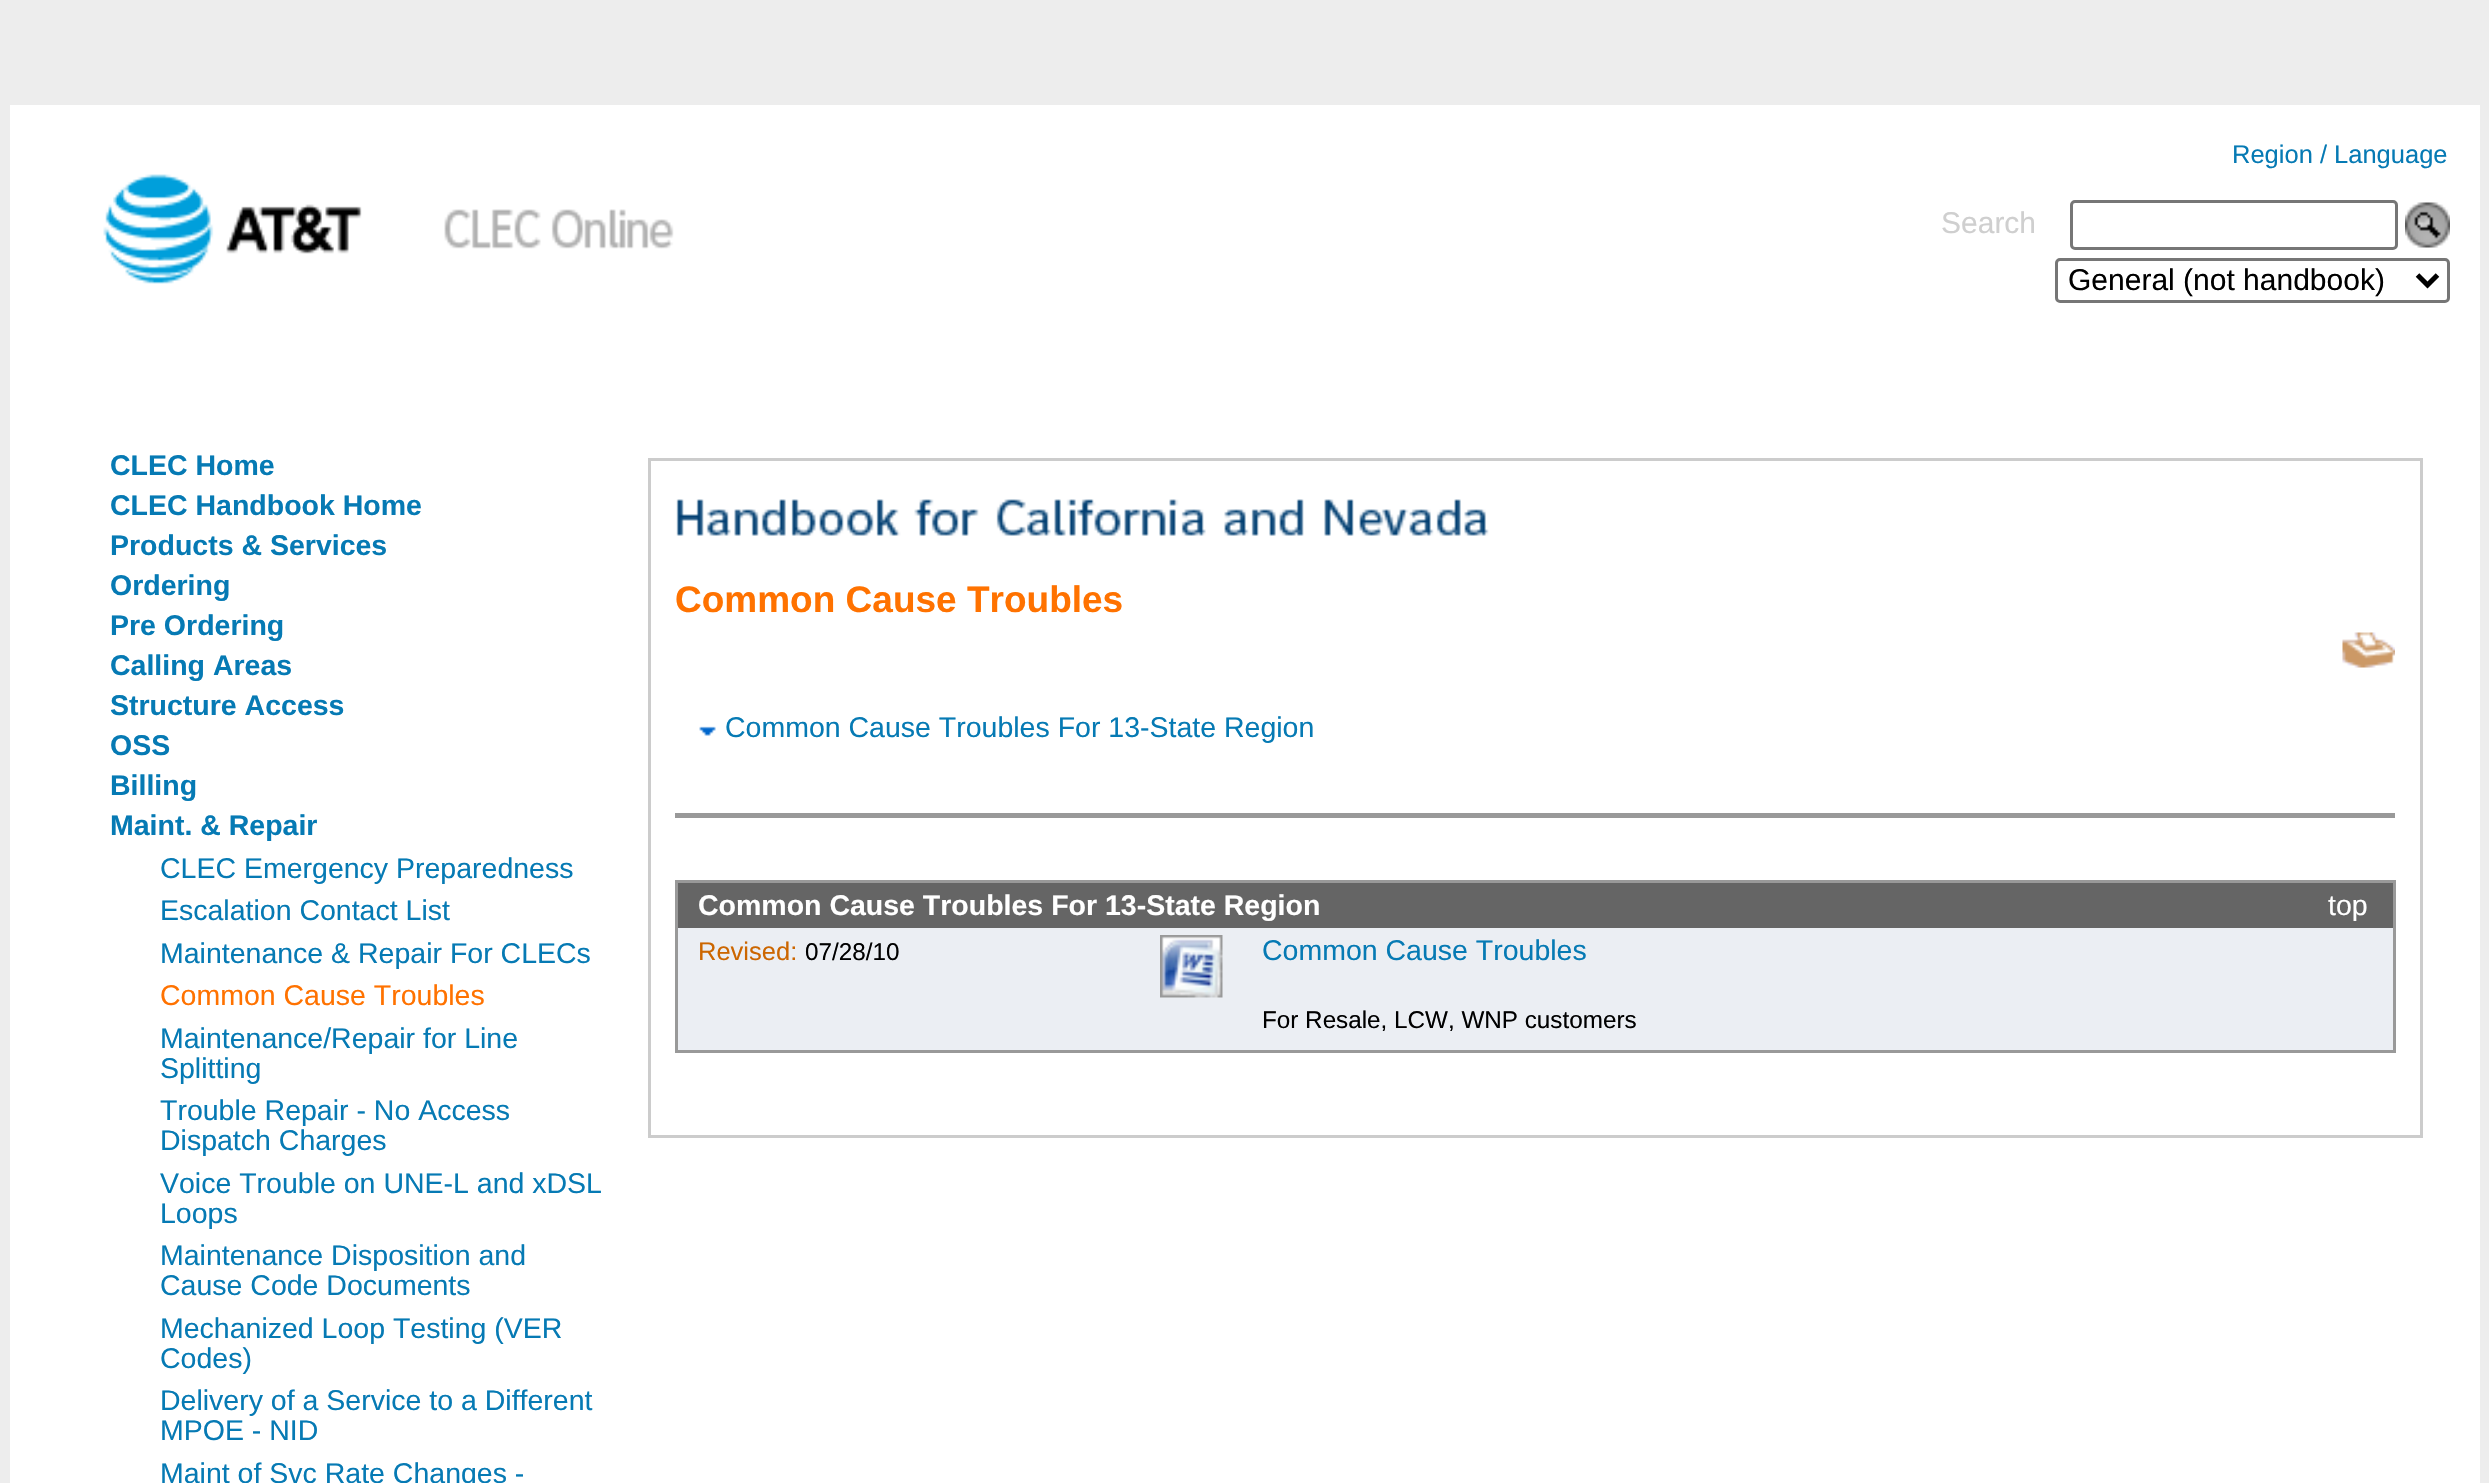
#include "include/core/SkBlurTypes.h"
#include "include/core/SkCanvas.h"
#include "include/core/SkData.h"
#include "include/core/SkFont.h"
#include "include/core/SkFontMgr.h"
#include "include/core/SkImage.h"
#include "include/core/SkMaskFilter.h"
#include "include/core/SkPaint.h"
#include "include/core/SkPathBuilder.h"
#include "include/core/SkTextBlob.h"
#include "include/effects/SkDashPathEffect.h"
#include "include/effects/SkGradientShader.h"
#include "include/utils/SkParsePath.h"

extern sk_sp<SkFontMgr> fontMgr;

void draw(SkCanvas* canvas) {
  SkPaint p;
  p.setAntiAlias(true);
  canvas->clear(SkColorSetRGB(237, 237, 237));
  p.setColor(SK_ColorWHITE);
  canvas->drawRect(SkRect::MakeLTRB(10, 105, 2480, 1483), p);
  canvas->drawImageRect(SkImages::DeferredFromEncodedData(SkData::MakeFromFileName("images/1.png")), SkRect::MakeLTRB(103, 174, 362, 284), SkSamplingOptions());
  canvas->drawImageRect(SkImages::DeferredFromEncodedData(SkData::MakeFromFileName("images/2.png")), SkRect::MakeLTRB(444, 209, 674, 249), SkSamplingOptions());
  p.setStyle(SkPaint::kStroke_Style);
  p.setStrokeWidth(3);
  p.setColor(SkColorSetRGB(118, 118, 118));
  canvas->drawRoundRect(SkRect::MakeLTRB(2071.5f, 201.5f, 2396.5f, 248.5f), 3.5f, 3.5f, p);
  canvas->drawImageRect(SkImages::DeferredFromEncodedData(SkData::MakeFromFileName("images/3.png")), SkRect::MakeLTRB(2405, 202, 2450, 248), SkSamplingOptions());
  canvas->drawRoundRect(SkRect::MakeLTRB(2056.5f, 259.5f, 2448.5f, 301.5f), 3.5f, 3.5f, p);
  p.setStrokeWidth(5);
  p.setColor(SK_ColorBLACK);
  canvas->drawPath(SkPathBuilder().moveTo(2417.5f, 275).lineTo(2427.5f, 285).lineTo(2437.5f, 275).detach(), p);
  p.setStrokeWidth(3);
  p.setColor(SkColorSetRGB(204, 204, 204));
  canvas->drawRect(SkRect::MakeLTRB(649.5f, 459.5f, 2421.5f, 1136.5f), p);
  canvas->drawImageRect(SkImages::DeferredFromEncodedData(SkData::MakeFromFileName("images/4.png")), SkRect::MakeLTRB(676, 499, 1489, 536), SkSamplingOptions());
  canvas->drawImageRect(SkImages::DeferredFromEncodedData(SkData::MakeFromFileName("images/5.png")), SkRect::MakeLTRB(2342, 632, 2395, 668), SkSamplingOptions());
  canvas->drawImageRect(SkImages::DeferredFromEncodedData(SkData::MakeFromFileName("images/6.png")), SkRect::MakeLTRB(699, 726, 716, 736), SkSamplingOptions());
  p.setStyle(SkPaint::kFill_Style);
  p.setColor(SkColorSetRGB(153, 153, 153));
  canvas->drawRect(SkRect::MakeLTRB(675, 813, 2395, 818), p);
  p.setColor(SkColorSetRGB(235, 238, 243));
  canvas->drawRect(SkRect::MakeLTRB(678, 928, 2393, 1050), p);
  p.setColor(SkColorSetRGB(153, 153, 153));
  canvas->drawRect(SkRect::MakeLTRB(675, 880, 2395, 883), p);
  canvas->drawRect(SkRect::MakeLTRB(2393, 880, 2396, 1053), p);
  canvas->drawRect(SkRect::MakeLTRB(675, 1050, 2395, 1053), p);
  canvas->drawRect(SkRect::MakeLTRB(675, 880, 678, 1053), p);
  p.setColor(SkColorSetRGB(101, 101, 101));
  canvas->drawRect(SkRect::MakeLTRB(678, 883, 2393, 928), p);
  canvas->drawImageRect(SkImages::DeferredFromEncodedData(SkData::MakeFromFileName("images/7.png")), SkRect::MakeLTRB(1160, 935, 1223, 998), SkSamplingOptions());
  SkFont font1(fontMgr->matchFamilyStyle("Liberation Sans", SkFontStyle::Normal()), 25.5f);
  font1.setSubpixel(true);
  p.setColor(SkColorSetRGB(6, 122, 180));
  canvas->drawString("Region / Language", 2232, 163, font1, p);
  SkFont font2(fontMgr->matchFamilyStyle("Liberation Sans", SkFontStyle::Normal()), 30);
  font2.setSubpixel(true);
  p.setColor(SkColorSetRGB(207, 207, 207));
  canvas->drawString("Search", 1941, 233, font2, p);
  p.setColor(SK_ColorBLACK);
  canvas->drawString("General (not handbook)", 2068, 290, font2, p);
  SkFont font3(fontMgr->matchFamilyStyle("Liberation Sans", SkFontStyle::Bold()), 28.5f);
  font3.setSubpixel(true);
  p.setColor(SkColorSetRGB(6, 122, 180));
  canvas->drawString("CLEC Home", 110, 475, font3, p);
  canvas->drawString("CLEC Handbook Home", 110, 515, font3, p);
  canvas->drawString("Products & Services", 110, 555, font3, p);
  canvas->drawString("Ordering", 110, 595, font3, p);
  canvas->drawString("Pre Ordering", 110, 635, font3, p);
  canvas->drawString("Calling Areas", 110, 675, font3, p);
  canvas->drawString("Structure Access", 110, 715, font3, p);
  canvas->drawString("OSS", 110, 755, font3, p);
  canvas->drawString("Billing", 110, 795, font3, p);
  canvas->drawString("Maint. & Repair", 110, 835, font3, p);
  SkFont font4(fontMgr->matchFamilyStyle("Liberation Sans", SkFontStyle::Normal()), 28.5f);
  font4.setSubpixel(true);
  canvas->drawString("CLEC Emergency Preparedness", 160, 878, font4, p);
  canvas->drawString("Escalation Contact List", 160, 920, font4, p);
  canvas->drawString("Maintenance & Repair For CLECs", 160, 963, font4, p);
  p.setColor(SkColorSetRGB(255, 114, 0));
  canvas->drawString("Common Cause Troubles", 160, 1005, font4, p);
  p.setColor(SkColorSetRGB(6, 122, 180));
  canvas->drawString("Maintenance/Repair for Line", 160, 1048, font4, p);
  canvas->drawString("Splitting", 160, 1078, font4, p);
  canvas->drawString("Trouble Repair - No Access", 160, 1120, font4, p);
  canvas->drawString("Dispatch Charges", 160, 1150, font4, p);
  canvas->drawString("Voice Trouble on UNE-L and xDSL", 160, 1193, font4, p);
  canvas->drawString("Loops", 160, 1223, font4, p);
  canvas->drawString("Maintenance Disposition and", 160, 1265, font4, p);
  canvas->drawString("Cause Code Documents", 160, 1295, font4, p);
  canvas->drawString("Mechanized Loop Testing (VER", 160, 1338, font4, p);
  canvas->drawString("Codes)", 160, 1368, font4, p);
  canvas->drawString("Delivery of a Service to a Different", 160, 1410, font4, p);
  canvas->drawString("MPOE - NID", 160, 1440, font4, p);
  canvas->drawString("Maint of Svc Rate Changes -", 160, 1483, font4, p);
  SkFont font5(fontMgr->matchFamilyStyle("Liberation Sans", SkFontStyle::Bold()), 37);
  font5.setSubpixel(true);
  p.setColor(SkColorSetRGB(255, 114, 0));
  canvas->drawString("Common Cause Troubles", 675, 612, font5, p);
  p.setColor(SkColorSetRGB(6, 122, 180));
  canvas->drawString("Common Cause Troubles For 13-State Region", 725, 737, font4, p);
  p.setColor(SK_ColorWHITE);
  canvas->drawString("Common Cause Troubles For 13-State Region", 698, 915, font3, p);
  canvas->drawString("top", 2328, 915, font4, p);
  p.setColor(SkColorSetRGB(204, 102, 0));
  canvas->drawString("Revised:", 698, 960, font1, p);
  SkFont font6(fontMgr->matchFamilyStyle("Liberation Sans", SkFontStyle::Normal()), 24.25f);
  font6.setSubpixel(true);
  p.setColor(SK_ColorBLACK);
  canvas->drawString("07/28/10", 805, 960, font6, p);
  p.setColor(SkColorSetRGB(6, 122, 180));
  canvas->drawString("Common Cause Troubles", 1262, 960, font4, p);
  p.setColor(SK_ColorBLACK);
  canvas->drawString("For Resale, LCW, WNP customers", 1262, 1028, font6, p);
}
